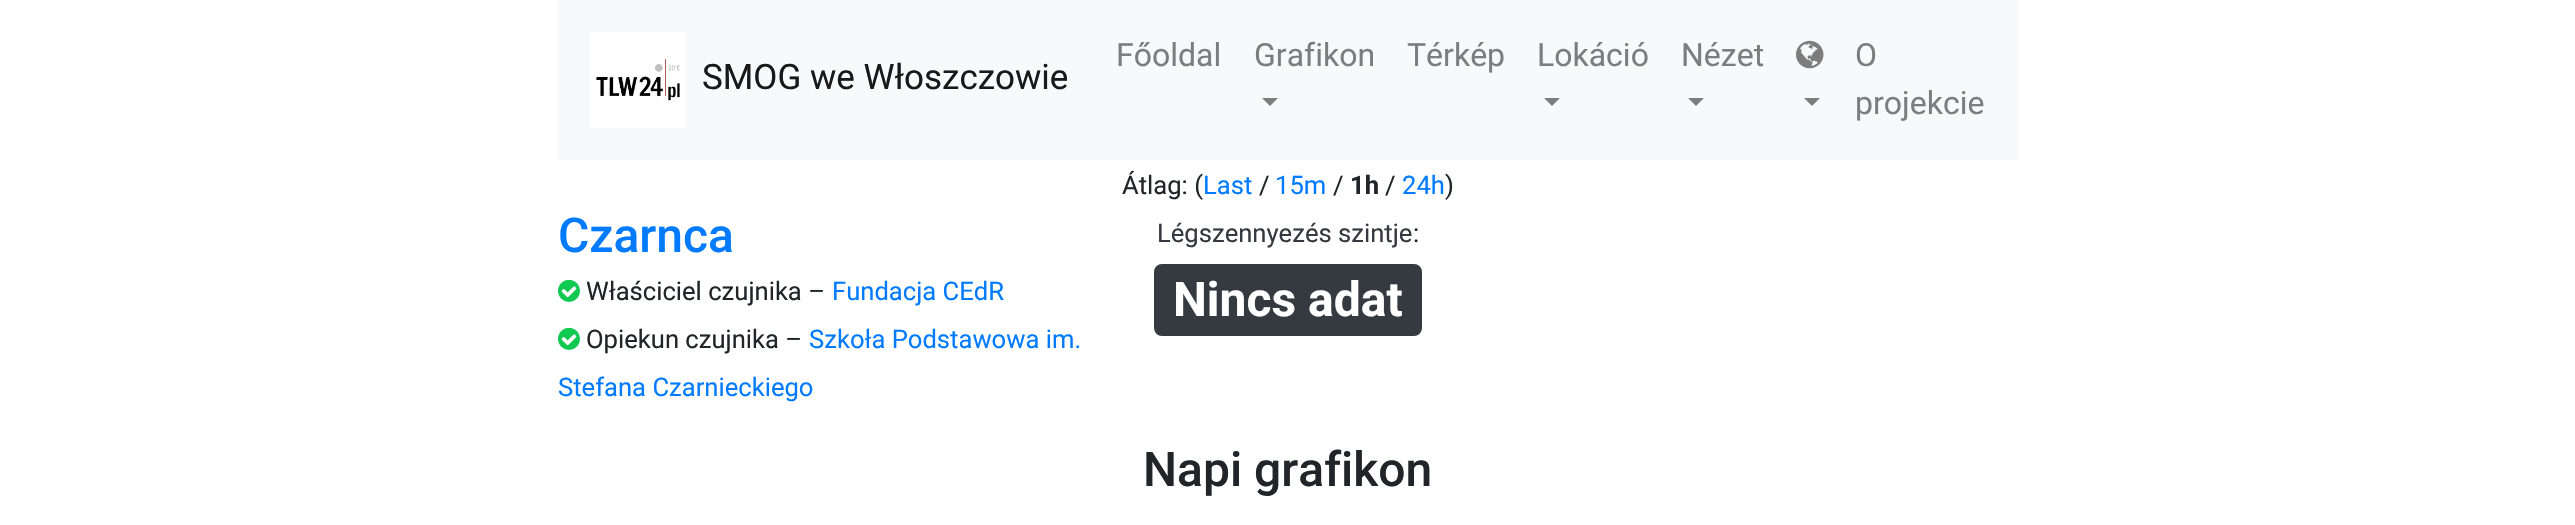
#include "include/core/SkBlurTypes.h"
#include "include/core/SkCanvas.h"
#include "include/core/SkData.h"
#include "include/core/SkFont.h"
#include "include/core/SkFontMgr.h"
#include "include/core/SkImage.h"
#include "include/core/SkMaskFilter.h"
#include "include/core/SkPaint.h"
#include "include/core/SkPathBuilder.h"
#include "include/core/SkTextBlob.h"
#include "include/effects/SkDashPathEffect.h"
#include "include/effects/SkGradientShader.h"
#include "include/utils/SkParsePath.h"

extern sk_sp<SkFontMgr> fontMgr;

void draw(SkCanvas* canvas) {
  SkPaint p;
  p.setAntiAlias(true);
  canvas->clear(SK_ColorWHITE);
  p.setColor(SkColorSetRGB(248, 249, 250));
  canvas->drawRect(SkRect::MakeLTRB(558, 0, 2018, 160), p);
  canvas->drawImageRect(SkImages::DeferredFromEncodedData(SkData::MakeFromFileName("images/1.png")), SkRect::MakeLTRB(590, 32, 686, 128), SkSamplingOptions());
  p.setColor(SkColorSetRGB(124, 125, 125));
  canvas->drawPath(SkPathBuilder().moveTo(1262, 98).lineTo(1278, 98).lineTo(1270, 106).close().detach(), p);
  canvas->drawPath(SkPathBuilder().moveTo(1544, 98).lineTo(1560, 98).lineTo(1552, 106).close().detach(), p);
  canvas->drawPath(SkPathBuilder().moveTo(1688, 98).lineTo(1704, 98).lineTo(1696, 106).close().detach(), p);
  canvas->drawImageRect(SkImages::DeferredFromEncodedData(SkData::MakeFromFileName("images/2.png")), SkRect::MakeLTRB(1796, 40, 1824, 69), SkSamplingOptions());
  canvas->drawPath(SkPathBuilder().moveTo(1804, 98).lineTo(1820, 98).lineTo(1812, 106).close().detach(), p);
  canvas->drawImageRect(SkImages::DeferredFromEncodedData(SkData::MakeFromFileName("images/3.png")), SkRect::MakeLTRB(558, 279, 580, 302), SkSamplingOptions());
  canvas->drawImageRect(SkImages::DeferredFromEncodedData(SkData::MakeFromFileName("images/3.png")), SkRect::MakeLTRB(558, 327, 580, 350), SkSamplingOptions());
  p.setColor(SkColorSetRGB(52, 58, 64));
  canvas->drawRoundRect(SkRect::MakeLTRB(1154, 264, 1422, 336), 8, 8, p);
  SkFont font1(fontMgr->matchFamilyStyle("Roboto", SkFontStyle::Normal()), 35);
  font1.setSubpixel(true);
  p.setColor(SkColorSetRGB(25, 25, 25));
  canvas->drawString("SMOG we Włoszczowie", 702, 89, font1, p);
  SkFont font2(fontMgr->matchFamilyStyle("Roboto", SkFontStyle::Normal()), 32);
  font2.setSubpixel(true);
  p.setColor(SkColorSetRGB(124, 125, 125));
  canvas->drawString("Főoldal", 1116, 66, font2, p);
  canvas->drawString("Grafikon", 1254, 66, font2, p);
  canvas->drawString("Térkép", 1407, 66, font2, p);
  canvas->drawString("Lokáció", 1537, 66, font2, p);
  canvas->drawString("Nézet", 1681, 66, font2, p);
  canvas->drawString("O", 1855, 66, font2, p);
  canvas->drawString("projekcie", 1855, 114, font2, p);
  SkFont font3(fontMgr->matchFamilyStyle("Roboto", SkFontStyle::Normal()), 25.6f);
  font3.setSubpixel(true);
  p.setColor(SkColorSetRGB(33, 37, 41));
  canvas->drawString("Átlag: (", 1122, 194, font3, p);
  p.setColor(SkColorSetRGB(0, 123, 255));
  canvas->drawString("Last", 1203, 194, font3, p);
  p.setColor(SkColorSetRGB(33, 37, 41));
  canvas->drawString("/", 1259, 194, font3, p);
  p.setColor(SkColorSetRGB(0, 123, 255));
  canvas->drawString("15m", 1275, 194, font3, p);
  p.setColor(SkColorSetRGB(33, 37, 41));
  canvas->drawString("/", 1333, 194, font3, p);
  SkFont font4(fontMgr->matchFamilyStyle("Roboto", SkFontStyle::Bold()), 25.6f);
  font4.setSubpixel(true);
  canvas->drawString("1h", 1350, 194, font4, p);
  canvas->drawString("/", 1385, 194, font3, p);
  p.setColor(SkColorSetRGB(0, 123, 255));
  canvas->drawString("24h", 1402, 194, font3, p);
  p.setColor(SkColorSetRGB(33, 37, 41));
  canvas->drawString(")", 1445, 194, font3, p);
  SkFont font5(fontMgr->matchFamilyStyle("Roboto", SkFontStyle(500, SkFontStyle::kNormal_Width, SkFontStyle::kUpright_Slant)), 48);
  font5.setSubpixel(true);
  p.setColor(SkColorSetRGB(0, 123, 255));
  canvas->drawString("Czarnca", 558, 252, font5, p);
  p.setColor(SkColorSetRGB(33, 37, 41));
  canvas->drawString("Właściciel czujnika –", 586, 300, font3, p);
  p.setColor(SkColorSetRGB(0, 123, 255));
  canvas->drawString("Fundacja CEdR", 832, 300, font3, p);
  p.setColor(SkColorSetRGB(33, 37, 41));
  canvas->drawString("Opiekun czujnika –", 586, 348, font3, p);
  p.setColor(SkColorSetRGB(0, 123, 255));
  canvas->drawString("Szkoła Podstawowa im.", 809, 348, font3, p);
  canvas->drawString("Stefana Czarnieckiego", 558, 396, font3, p);
  p.setColor(SkColorSetRGB(52, 58, 64));
  canvas->drawString("Légszennyezés szintje", 1157, 242, font3, p);
  p.setColor(SkColorSetRGB(33, 37, 41));
  canvas->drawString(":", 1413, 242, font3, p);
  SkFont font6(fontMgr->matchFamilyStyle("Roboto", SkFontStyle::Bold()), 48);
  font6.setSubpixel(true);
  p.setColor(SK_ColorWHITE);
  canvas->drawString("Nincs adat", 1173, 316, font6, p);
  p.setColor(SkColorSetRGB(33, 37, 41));
  canvas->drawString("Napi grafikon", 1143, 486, font5, p);
}
